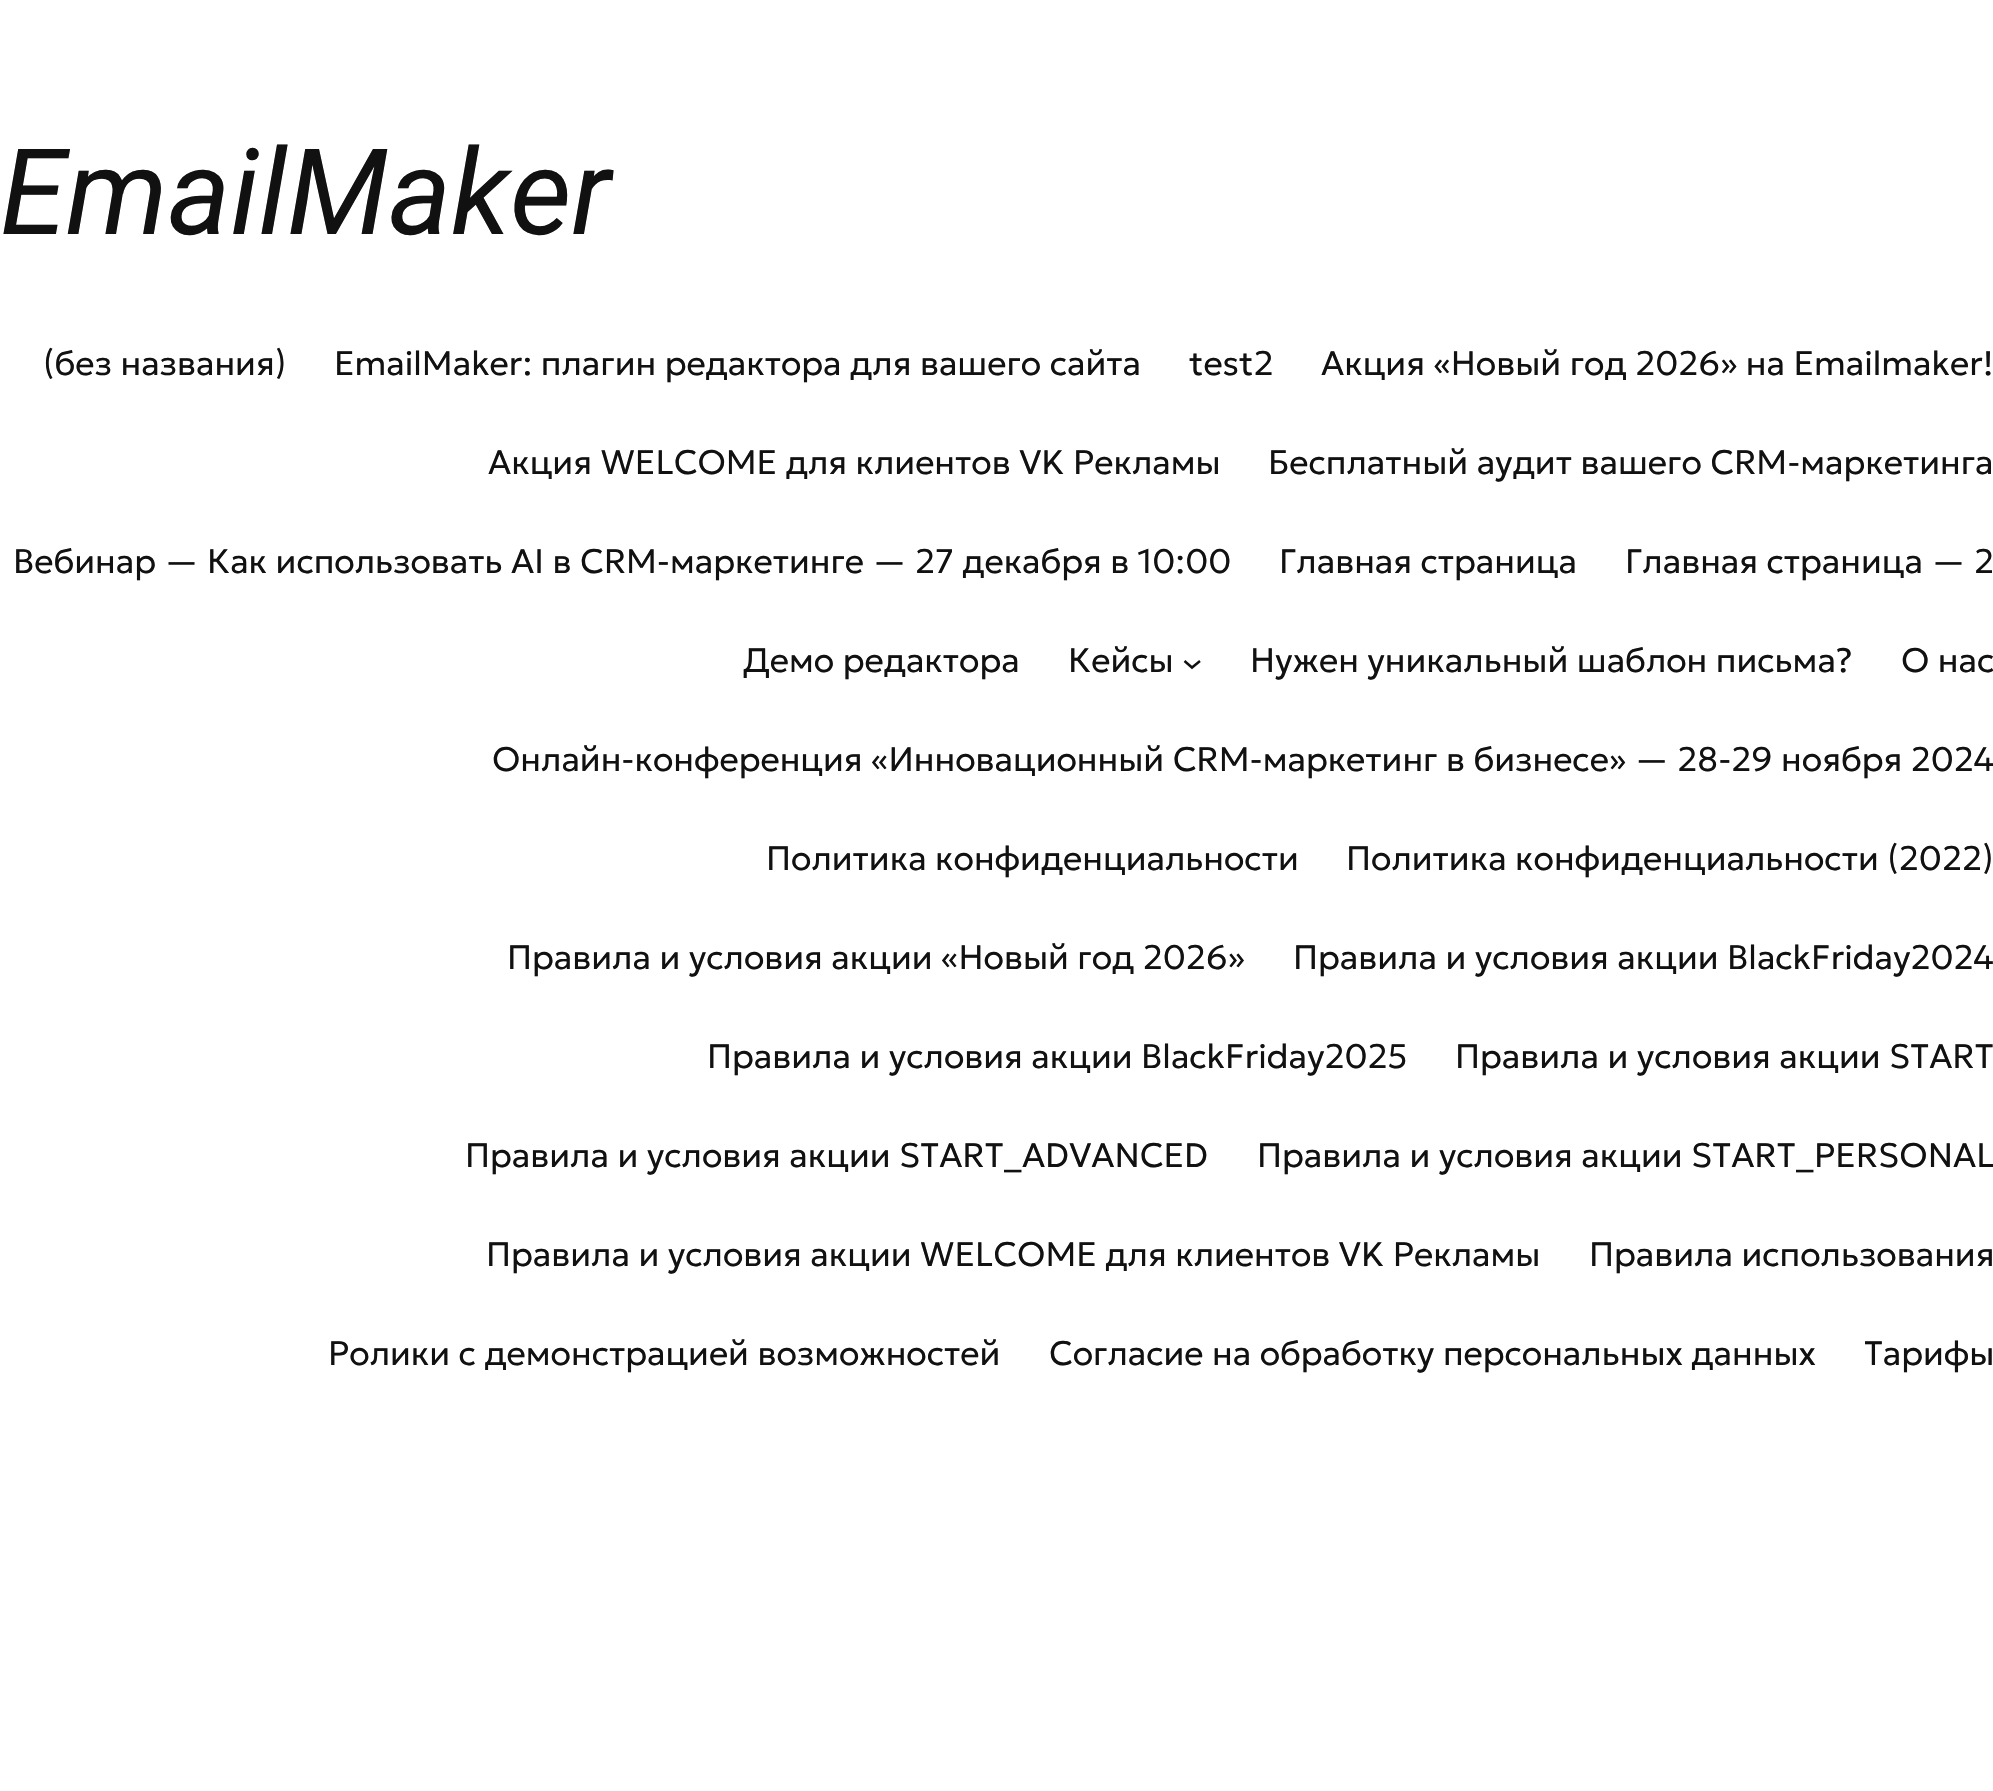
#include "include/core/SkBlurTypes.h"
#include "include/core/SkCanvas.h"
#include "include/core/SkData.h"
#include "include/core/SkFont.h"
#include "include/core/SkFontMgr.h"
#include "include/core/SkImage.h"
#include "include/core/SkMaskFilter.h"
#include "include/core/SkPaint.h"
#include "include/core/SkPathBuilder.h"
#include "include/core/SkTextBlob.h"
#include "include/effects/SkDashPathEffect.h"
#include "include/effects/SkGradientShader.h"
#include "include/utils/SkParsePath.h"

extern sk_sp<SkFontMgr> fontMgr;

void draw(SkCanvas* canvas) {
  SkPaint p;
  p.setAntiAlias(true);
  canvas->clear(SK_ColorWHITE);
  p.setStyle(SkPaint::kStroke_Style);
  p.setStrokeWidth(2.5f);
  p.setColor(SkColorSetRGB(17, 17, 17));
  canvas->drawPath(SkPathBuilder().moveTo(1184.5f, 661).lineTo(1192, 667.5f).lineTo(1200, 661).detach(), p);
  SkFont font1(fontMgr->matchFamilyStyle("Roboto", SkFontStyle::Italic()), 119.5f);
  font1.setSubpixel(true);
  p.setStyle(SkPaint::kFill_Style);
  canvas->drawString("EmailMaker", 0, 234, font1, p);
  SkFont font2(fontMgr->matchFamilyStyle("Geologica", SkFontStyle(300, SkFontStyle::kNormal_Width, SkFontStyle::kUpright_Slant)), 34);
  font2.setSubpixel(true);
  canvas->drawString("(без названия)", 43, 375, font2, p);
  canvas->drawString("EmailMaker: плагин редактора для вашего сайта", 334, 375, font2, p);
  canvas->drawString("test2", 1189, 375, font2, p);
  canvas->drawString("Акция «Новый год 2026» на Emailmaker!", 1321, 375, font2, p);
  canvas->drawString("Акция WELCOME для клиентов VK Рекламы", 488, 474, font2, p);
  canvas->drawString("Бесплатный аудит вашего CRM-маркетинга", 1268, 474, font2, p);
  canvas->drawString("Вебинар — Как использовать AI в CRM-маркетинге — 27 декабря в 10:00", 13, 573, font2, p);
  canvas->drawString("Главная страница", 1279, 573, font2, p);
  canvas->drawString("Главная страница — 2", 1625, 573, font2, p);
  canvas->drawString("Демо редактора", 743, 672, font2, p);
  canvas->drawString("Кейсы", 1068, 672, font2, p);
  canvas->drawString("Нужен уникальный шаблон письма?", 1250, 672, font2, p);
  canvas->drawString("О нас", 1901, 672, font2, p);
  canvas->drawString("Онлайн-конференция «Инновационный CRM-маркетинг в бизнесе» — 28-29 ноября 2024", 492, 771, font2, p);
  canvas->drawString("Политика конфиденциальности", 766, 870, font2, p);
  canvas->drawString("Политика конфиденциальности (2022)", 1346, 870, font2, p);
  canvas->drawString("Правила и условия акции «Новый год 2026»", 507, 969, font2, p);
  canvas->drawString("Правила и условия акции BlackFriday2024", 1293, 969, font2, p);
  canvas->drawString("Правила и условия акции BlackFriday2025", 707, 1068, font2, p);
  canvas->drawString("Правила и условия акции START", 1455, 1068, font2, p);
  canvas->drawString("Правила и условия акции START_ADVANCED", 465, 1167, font2, p);
  canvas->drawString("Правила и условия акции START_PERSONAL", 1257, 1167, font2, p);
  canvas->drawString("Правила и условия акции WELCOME для клиентов VK Рекламы", 486, 1266, font2, p);
  canvas->drawString("Правила использования", 1589, 1266, font2, p);
  canvas->drawString("Ролики с демонстрацией возможностей", 328, 1365, font2, p);
  canvas->drawString("Согласие на обработку персональных данных", 1049, 1365, font2, p);
  canvas->drawString("Тарифы", 1864, 1365, font2, p);
}
